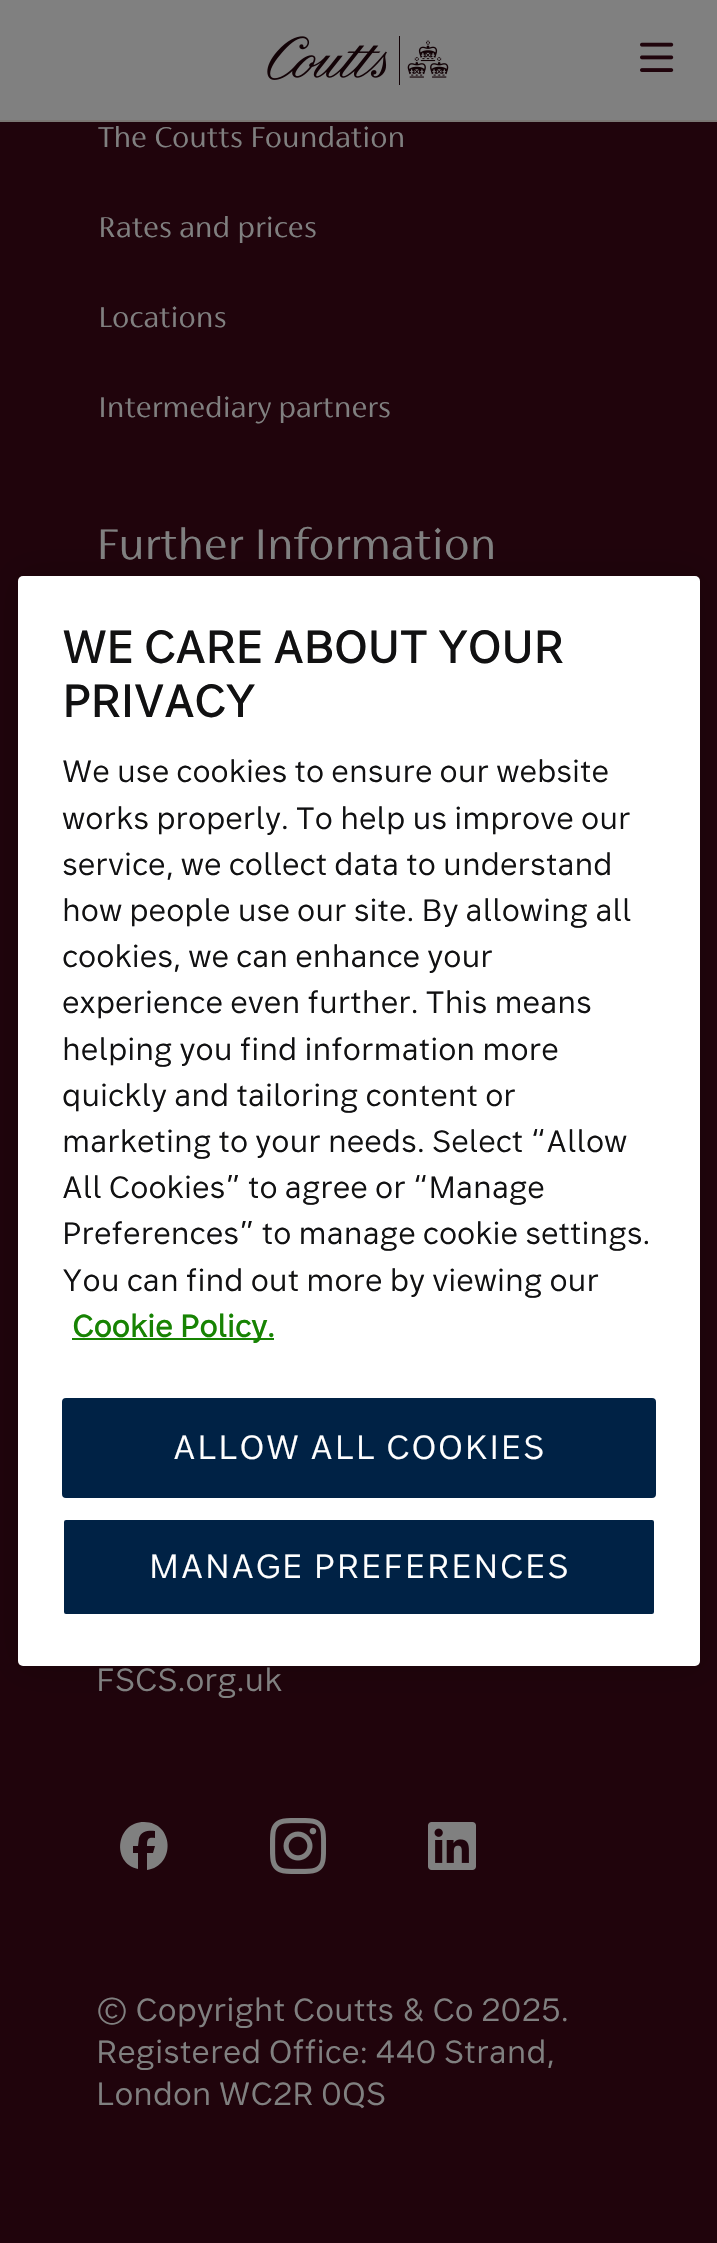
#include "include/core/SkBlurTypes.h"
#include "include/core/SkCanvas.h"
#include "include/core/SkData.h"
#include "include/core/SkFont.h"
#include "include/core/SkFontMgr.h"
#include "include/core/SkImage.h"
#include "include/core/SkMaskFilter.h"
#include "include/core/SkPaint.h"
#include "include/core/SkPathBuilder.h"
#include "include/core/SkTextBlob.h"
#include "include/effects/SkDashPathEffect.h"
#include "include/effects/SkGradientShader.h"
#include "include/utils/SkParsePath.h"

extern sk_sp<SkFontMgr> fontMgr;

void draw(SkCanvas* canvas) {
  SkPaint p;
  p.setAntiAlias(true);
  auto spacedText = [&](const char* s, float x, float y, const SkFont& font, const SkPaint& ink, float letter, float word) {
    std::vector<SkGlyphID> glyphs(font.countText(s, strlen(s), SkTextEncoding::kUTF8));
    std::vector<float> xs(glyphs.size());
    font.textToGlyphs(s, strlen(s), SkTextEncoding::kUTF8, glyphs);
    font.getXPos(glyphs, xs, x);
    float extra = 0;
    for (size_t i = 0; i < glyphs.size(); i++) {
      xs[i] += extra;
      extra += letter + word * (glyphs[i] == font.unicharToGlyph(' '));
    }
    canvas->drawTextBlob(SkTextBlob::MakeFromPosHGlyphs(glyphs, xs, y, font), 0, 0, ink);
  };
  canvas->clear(SkColorSetRGB(32, 4, 12));
  p.setColor(SkColorSetRGB(128, 128, 128));
  canvas->drawRect(SkRect::MakeLTRB(0, 0, 717, 120), p);
  p.setColor(SkColorSetRGB(123, 119, 116));
  canvas->drawRect(SkRect::MakeLTRB(0, 120, 717, 122), p);
  canvas->drawImageRect(SkImages::DeferredFromEncodedData(SkData::MakeFromFileName("images/1.png")), SkRect::MakeLTRB(267, 36, 449, 85), SkSamplingOptions());
  canvas->drawImageRect(SkImages::DeferredFromEncodedData(SkData::MakeFromFileName("images/2.png")), SkRect::MakeLTRB(640, 42, 674, 72), SkSamplingOptions());
  p.setColor(SkColorSetRGB(128, 128, 128));
  canvas->drawPath(SkPathBuilder().moveTo(144, 1822).cubicTo(116, 1822, 111, 1863, 138, 1869).lineTo(138, 1853).lineTo(133, 1853).lineTo(133, 1846).lineTo(138, 1846).lineTo(139, 1838).cubicTo(141, 1831, 149, 1830, 155, 1831).lineTo(155, 1838).cubicTo(148, 1837, 147, 1839, 147, 1846).lineTo(155, 1846).lineTo(153, 1853).lineTo(147, 1853).lineTo(147, 1870).cubicTo(176, 1866, 174, 1822, 144, 1822).close().detach(), p);
  canvas->drawImageRect(SkImages::DeferredFromEncodedData(SkData::MakeFromFileName("images/3.png")), SkRect::MakeLTRB(270, 1818, 326, 1874), SkSamplingOptions());
  canvas->drawImageRect(SkImages::DeferredFromEncodedData(SkData::MakeFromFileName("images/4.png")), SkRect::MakeLTRB(428, 1822, 476, 1870), SkSamplingOptions());
  p.setColor(SkColorSetARGB(51, 0, 0, 0));
  p.setMaskFilter(SkMaskFilter::MakeBlur(kNormal_SkBlurStyle, 18));
  canvas->drawRoundRect(SkRect::MakeLTRB(18, 576, 700, 1666), 5, 5, p);
  p.setMaskFilter(nullptr);
  p.setColor(SK_ColorWHITE);
  canvas->drawRoundRect(SkRect::MakeLTRB(18, 576, 700, 1666), 5, 5, p);
  p.setColor(SkColorSetRGB(23, 131, 3));
  canvas->drawRect(SkRect::MakeLTRB(72, 1338, 274, 1340), p);
  p.setColor(SkColorSetRGB(0, 34, 69));
  canvas->drawRoundRect(SkRect::MakeLTRB(63, 1399, 655, 1497), 3, 3, p);
  p.setStyle(SkPaint::kStroke_Style);
  p.setStrokeWidth(2);
  canvas->drawRoundRect(SkRect::MakeLTRB(63, 1399, 655, 1497), 3, 3, p);
  p.setStyle(SkPaint::kFill_Style);
  canvas->drawRoundRect(SkRect::MakeLTRB(63, 1519, 655, 1615), 3, 3, p);
  p.setStyle(SkPaint::kStroke_Style);
  p.setColor(SK_ColorWHITE);
  canvas->drawRoundRect(SkRect::MakeLTRB(63, 1519, 655, 1615), 3, 3, p);
  SkFont font1(fontMgr->matchFamilyStyle("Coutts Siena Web", SkFontStyle(300, SkFontStyle::kNormal_Width, SkFontStyle::kUpright_Slant)), 32);
  font1.setSubpixel(true);
  p.setStyle(SkPaint::kFill_Style);
  p.setColor(SkColorSetRGB(128, 128, 128));
  canvas->drawString("The Coutts Foundation", 98, 147, font1, p);
  canvas->drawString("Rates and prices", 98, 237, font1, p);
  canvas->drawString("Locations", 98, 327, font1, p);
  canvas->drawString("Intermediary partners", 98, 417, font1, p);
  SkFont font2(fontMgr->matchFamilyStyle("Coutts Siena Web", SkFontStyle(300, SkFontStyle::kNormal_Width, SkFontStyle::kUpright_Slant)), 48);
  font2.setSubpixel(true);
  canvas->drawString("Further Information", 96, 559, font2, p);
  SkFont font3(fontMgr->matchFamilyStyle("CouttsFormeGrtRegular", SkFontStyle::Normal()), 32);
  font3.setSubpixel(true);
  canvas->drawString("FSCS.org.uk", 96, 1691, font3, p);
  canvas->drawString("© Copyright Coutts & Co 2025.", 96, 2021, font3, p);
  canvas->drawString("Registered Office: 440 Strand,", 96, 2063, font3, p);
  canvas->drawString("London WC2R 0QS", 96, 2105, font3, p);
  SkFont font4(fontMgr->matchFamilyStyle("CouttsFormeGrtRegular", SkFontStyle::Bold()), 44.75f);
  font4.setSubpixel(true);
  p.setColor(SkColorSetRGB(17, 17, 18));
  canvas->drawString("WE CARE ABOUT YOUR", 62, 663, font4, p);
  canvas->drawString("PRIVACY", 62, 717, font4, p);
  SkFont font5(fontMgr->matchFamilyStyle("CouttsFormeGrtRegular", SkFontStyle::Normal()), 30.75f);
  font5.setSubpixel(true);
  canvas->drawString("We use cookies to ensure our website", 62, 782, font5, p);
  canvas->drawString("works properly. To help us improve our", 62, 829, font5, p);
  canvas->drawString("service, we collect data to understand", 62, 875, font5, p);
  canvas->drawString("how people use our site. By allowing all", 62, 921, font5, p);
  canvas->drawString("cookies, we can enhance your", 62, 967, font5, p);
  canvas->drawString("experience even further. This means", 62, 1013, font5, p);
  canvas->drawString("helping you find information more", 62, 1060, font5, p);
  canvas->drawString("quickly and tailoring content or", 62, 1106, font5, p);
  canvas->drawString("marketing to your needs. Select “Allow", 62, 1152, font5, p);
  canvas->drawString("All Cookies” to agree or “Manage", 62, 1198, font5, p);
  canvas->drawString("Preferences” to manage cookie settings.", 62, 1244, font5, p);
  canvas->drawString("You can find out more by viewing our", 62, 1291, font5, p);
  SkFont font6(fontMgr->matchFamilyStyle("CouttsFormeGrtRegular", SkFontStyle::Bold()), 30.75f);
  font6.setSubpixel(true);
  p.setColor(SkColorSetRGB(23, 131, 3));
  canvas->drawString("Cookie Policy.", 72, 1337, font6, p);
  SkFont font7(fontMgr->matchFamilyStyle("CouttsFormeGrtRegular", SkFontStyle::Normal()), 33.6f);
  font7.setSubpixel(true);
  p.setColor(SK_ColorWHITE);
  spacedText("ALLOW ALL COOKIES", 173, 1459, font7, p, 1.7f, 0);
  spacedText("MANAGE PREFERENCES", 149, 1578, font7, p, 1.7f, 0);
}
